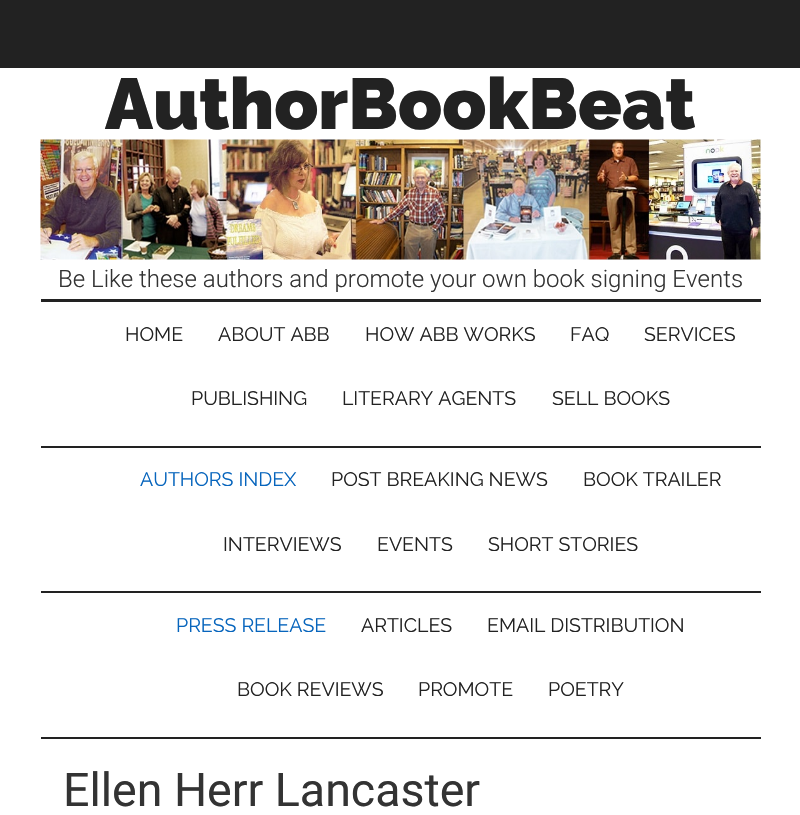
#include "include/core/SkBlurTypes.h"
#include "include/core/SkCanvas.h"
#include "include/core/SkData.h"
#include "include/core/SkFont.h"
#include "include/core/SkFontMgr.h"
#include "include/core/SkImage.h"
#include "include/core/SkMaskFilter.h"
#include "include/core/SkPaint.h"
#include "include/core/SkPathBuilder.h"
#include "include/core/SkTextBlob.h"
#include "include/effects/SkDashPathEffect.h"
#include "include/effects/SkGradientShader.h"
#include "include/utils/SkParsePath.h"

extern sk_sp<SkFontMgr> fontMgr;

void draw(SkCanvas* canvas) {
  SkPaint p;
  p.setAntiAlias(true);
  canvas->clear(SK_ColorWHITE);
  p.setColor(SkColorSetRGB(34, 34, 34));
  canvas->drawRect(SkRect::MakeLTRB(0, 0, 800, 68), p);
  canvas->drawRect(SkRect::MakeLTRB(41, 299, 761, 302), p);
  canvas->drawImageRect(SkImages::DeferredFromEncodedData(SkData::MakeFromFileName("images/1.png")), SkRect::MakeLTRB(40, 139, 761, 260), SkSamplingOptions());
  canvas->drawRect(SkRect::MakeLTRB(41, 446, 761, 448), p);
  canvas->drawRect(SkRect::MakeLTRB(41, 591, 761, 593), p);
  canvas->drawRect(SkRect::MakeLTRB(41, 737, 761, 739), p);
  SkFont font1(fontMgr->matchFamilyStyle("Raleway", SkFontStyle(900, SkFontStyle::kNormal_Width, SkFontStyle::kUpright_Slant)), 72);
  font1.setSubpixel(true);
  canvas->drawString("AuthorBookBeat", 105, 129, font1, p);
  SkFont font2(fontMgr->matchFamilyStyle("Roboto", SkFontStyle(300, SkFontStyle::kNormal_Width, SkFontStyle::kUpright_Slant)), 24);
  font2.setSubpixel(true);
  p.setColor(SkColorSetRGB(51, 51, 51));
  canvas->drawString("Be Like these authors and promote your own book signing Events", 58, 287, font2, p);
  SkFont font3(fontMgr->matchFamilyStyle("Raleway", SkFontStyle::Normal()), 19.5f);
  font3.setSubpixel(true);
  p.setColor(SkColorSetRGB(34, 34, 34));
  canvas->drawString("HOME", 125, 341, font3, p);
  canvas->drawString("ABOUT ABB", 218, 341, font3, p);
  canvas->drawString("HOW ABB WORKS", 365, 341, font3, p);
  canvas->drawString("FAQ", 570, 341, font3, p);
  canvas->drawString("SERVICES", 644, 341, font3, p);
  canvas->drawString("PUBLISHING", 191, 405, font3, p);
  canvas->drawString("LITERARY AGENTS", 342, 405, font3, p);
  canvas->drawString("SELL BOOKS", 552, 405, font3, p);
  p.setColor(SkColorSetRGB(7, 101, 189));
  canvas->drawString("AUTHORS INDEX", 140, 486, font3, p);
  p.setColor(SkColorSetRGB(34, 34, 34));
  canvas->drawString("POST BREAKING NEWS", 331, 486, font3, p);
  canvas->drawString("BOOK TRAILER", 583, 486, font3, p);
  canvas->drawString("INTERVIEWS", 223, 551, font3, p);
  canvas->drawString("EVENTS", 377, 551, font3, p);
  canvas->drawString("SHORT STORIES", 488, 551, font3, p);
  p.setColor(SkColorSetRGB(7, 101, 189));
  canvas->drawString("PRESS RELEASE", 176, 632, font3, p);
  p.setColor(SkColorSetRGB(34, 34, 34));
  canvas->drawString("ARTICLES", 361, 632, font3, p);
  canvas->drawString("EMAIL DISTRIBUTION", 487, 632, font3, p);
  canvas->drawString("BOOK REVIEWS", 237, 696, font3, p);
  canvas->drawString("PROMOTE", 418, 696, font3, p);
  canvas->drawString("POETRY", 548, 696, font3, p);
  SkFont font4(fontMgr->matchFamilyStyle("Roboto", SkFontStyle::Normal()), 46.5f);
  font4.setSubpixel(true);
  p.setColor(SkColorSetRGB(51, 51, 51));
  canvas->drawString("Ellen Herr Lancaster", 63, 806, font4, p);
}
